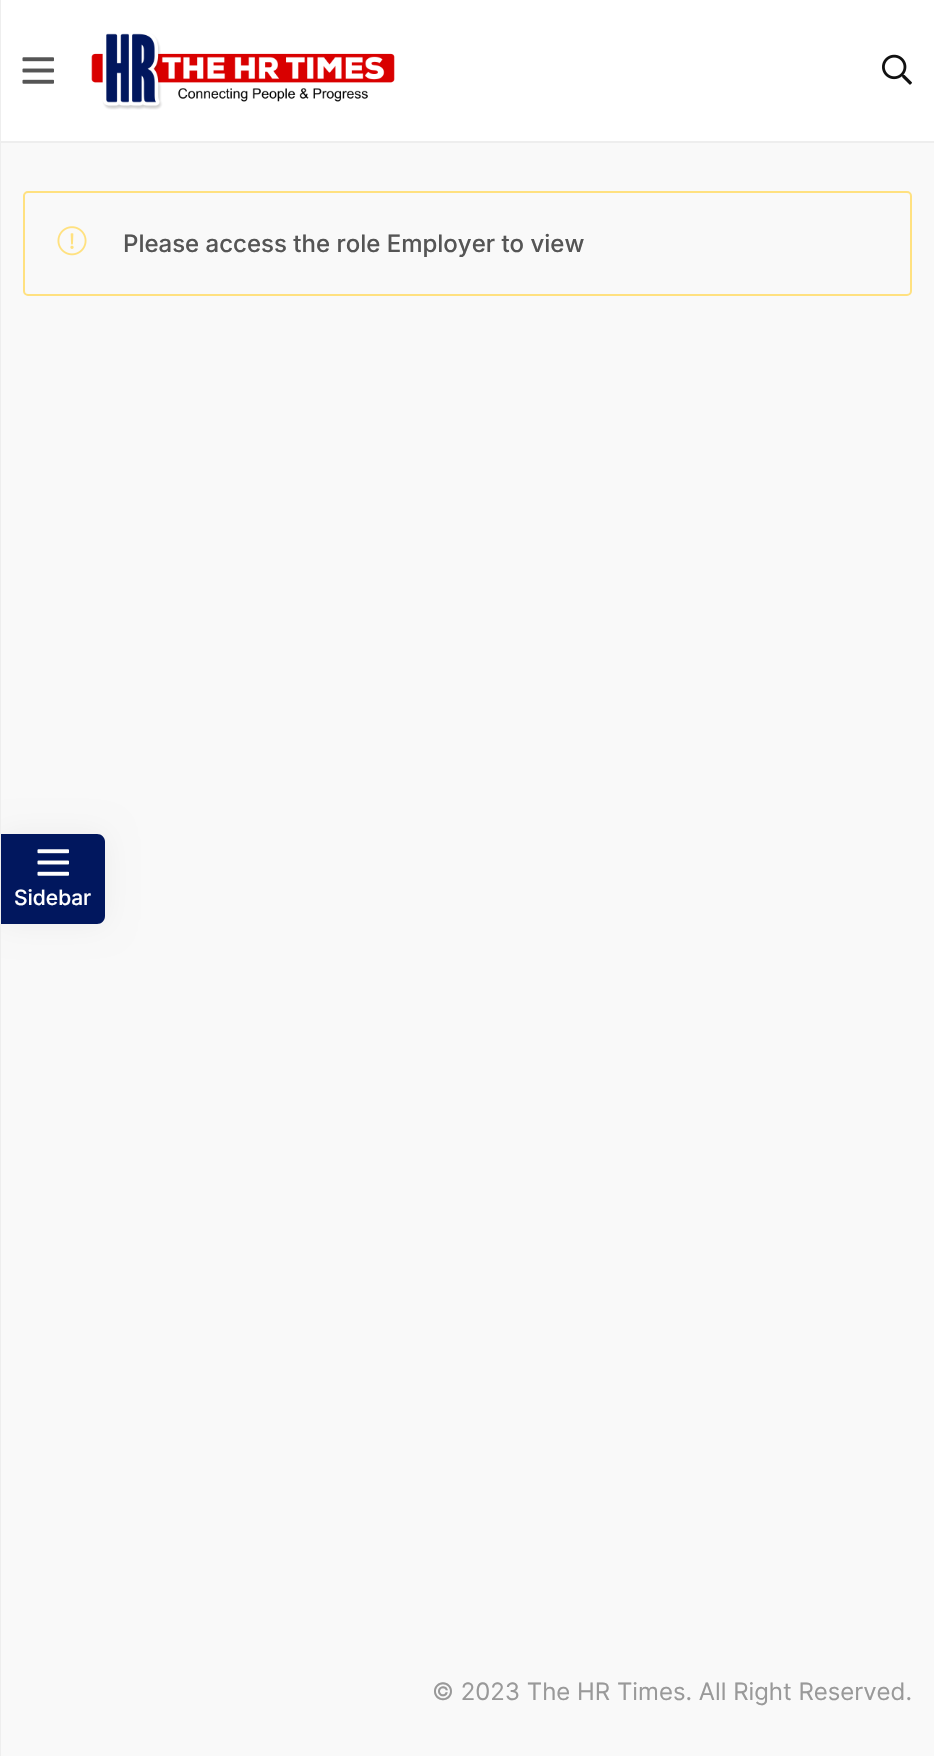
#include "include/core/SkBlurTypes.h"
#include "include/core/SkCanvas.h"
#include "include/core/SkData.h"
#include "include/core/SkFont.h"
#include "include/core/SkFontMgr.h"
#include "include/core/SkImage.h"
#include "include/core/SkMaskFilter.h"
#include "include/core/SkPaint.h"
#include "include/core/SkPathBuilder.h"
#include "include/core/SkTextBlob.h"
#include "include/effects/SkDashPathEffect.h"
#include "include/effects/SkGradientShader.h"
#include "include/utils/SkParsePath.h"

extern sk_sp<SkFontMgr> fontMgr;

void draw(SkCanvas* canvas) {
  SkPaint p;
  p.setAntiAlias(true);
  canvas->clear(SkColorSetRGB(249, 249, 249));
  p.setColor(SkColorSetARGB(13, 0, 0, 0));
  p.setMaskFilter(SkMaskFilter::MakeBlur(kNormal_SkBlurStyle, 15));
  canvas->drawRoundRect(SkRect::MakeLTRB(0, 834, 105, 924), 8, 8, p);
  p.setMaskFilter(nullptr);
  p.setColor(SkColorSetRGB(1, 23, 94));
  canvas->drawPath(SkPathBuilder().moveTo(0, 834).lineTo(97, 834).cubicTo(101.5f, 834, 105, 837.5f, 105, 842).lineTo(105, 916).cubicTo(105, 920.5f, 101.5f, 924, 97, 924).lineTo(0, 924).close().detach(), p);
  p.setColor(SkColorSetRGB(238, 238, 238));
  canvas->drawRect(SkRect::MakeLTRB(0, 141, 934, 143), p);
  canvas->drawRect(SkRect::MakeLTRB(0, 0, 1, 1756), p);
  canvas->drawImageRect(SkImages::DeferredFromEncodedData(SkData::MakeFromFileName("images/1.png")), SkRect::MakeLTRB(37, 849, 69, 876), SkSamplingOptions());
  p.setColor(SK_ColorWHITE);
  canvas->drawRect(SkRect::MakeLTRB(1, 0, 934, 141), p);
  canvas->drawImageRect(SkImages::DeferredFromEncodedData(SkData::MakeFromFileName("images/2.png")), SkRect::MakeLTRB(22, 57, 54, 84), SkSamplingOptions());
  canvas->drawImageRect(SkImages::DeferredFromEncodedData(SkData::MakeFromFileName("images/3.png")), SkRect::MakeLTRB(91, 33, 395, 110), SkSamplingOptions());
  canvas->drawImageRect(SkImages::DeferredFromEncodedData(SkData::MakeFromFileName("images/4.png")), SkRect::MakeLTRB(882, 54, 912, 85), SkSamplingOptions());
  p.setStyle(SkPaint::kStroke_Style);
  p.setStrokeWidth(2);
  p.setColor(SkColorSetRGB(255, 225, 128));
  canvas->drawRoundRect(SkRect::MakeLTRB(24, 192, 911, 295), 4, 4, p);
  canvas->drawImageRect(SkImages::DeferredFromEncodedData(SkData::MakeFromFileName("images/5.png")), SkRect::MakeLTRB(57, 226, 87, 256), SkSamplingOptions());
  SkFont font1(fontMgr->matchFamilyStyle("Inter", SkFontStyle(500, SkFontStyle::kNormal_Width, SkFontStyle::kUpright_Slant)), 21);
  font1.setSubpixel(true);
  p.setStyle(SkPaint::kFill_Style);
  p.setColor(SK_ColorWHITE);
  canvas->drawString("Sidebar", 14, 905, font1, p);
  SkFont font2(fontMgr->matchFamilyStyle("Inter", SkFontStyle(500, SkFontStyle::kNormal_Width, SkFontStyle::kUpright_Slant)), 24);
  font2.setSubpixel(true);
  p.setColor(SkColorSetRGB(85, 85, 85));
  canvas->drawString("Please access the role Employer to view", 123, 252, font2, p);
  SkFont font3(fontMgr->matchFamilyStyle("Inter", SkFontStyle::Normal()), 24);
  font3.setSubpixel(true);
  p.setColor(SkColorSetRGB(153, 153, 153));
  canvas->drawString("© 2023 The HR Times. All Right Reserved.", 432, 1700, font3, p);
}
